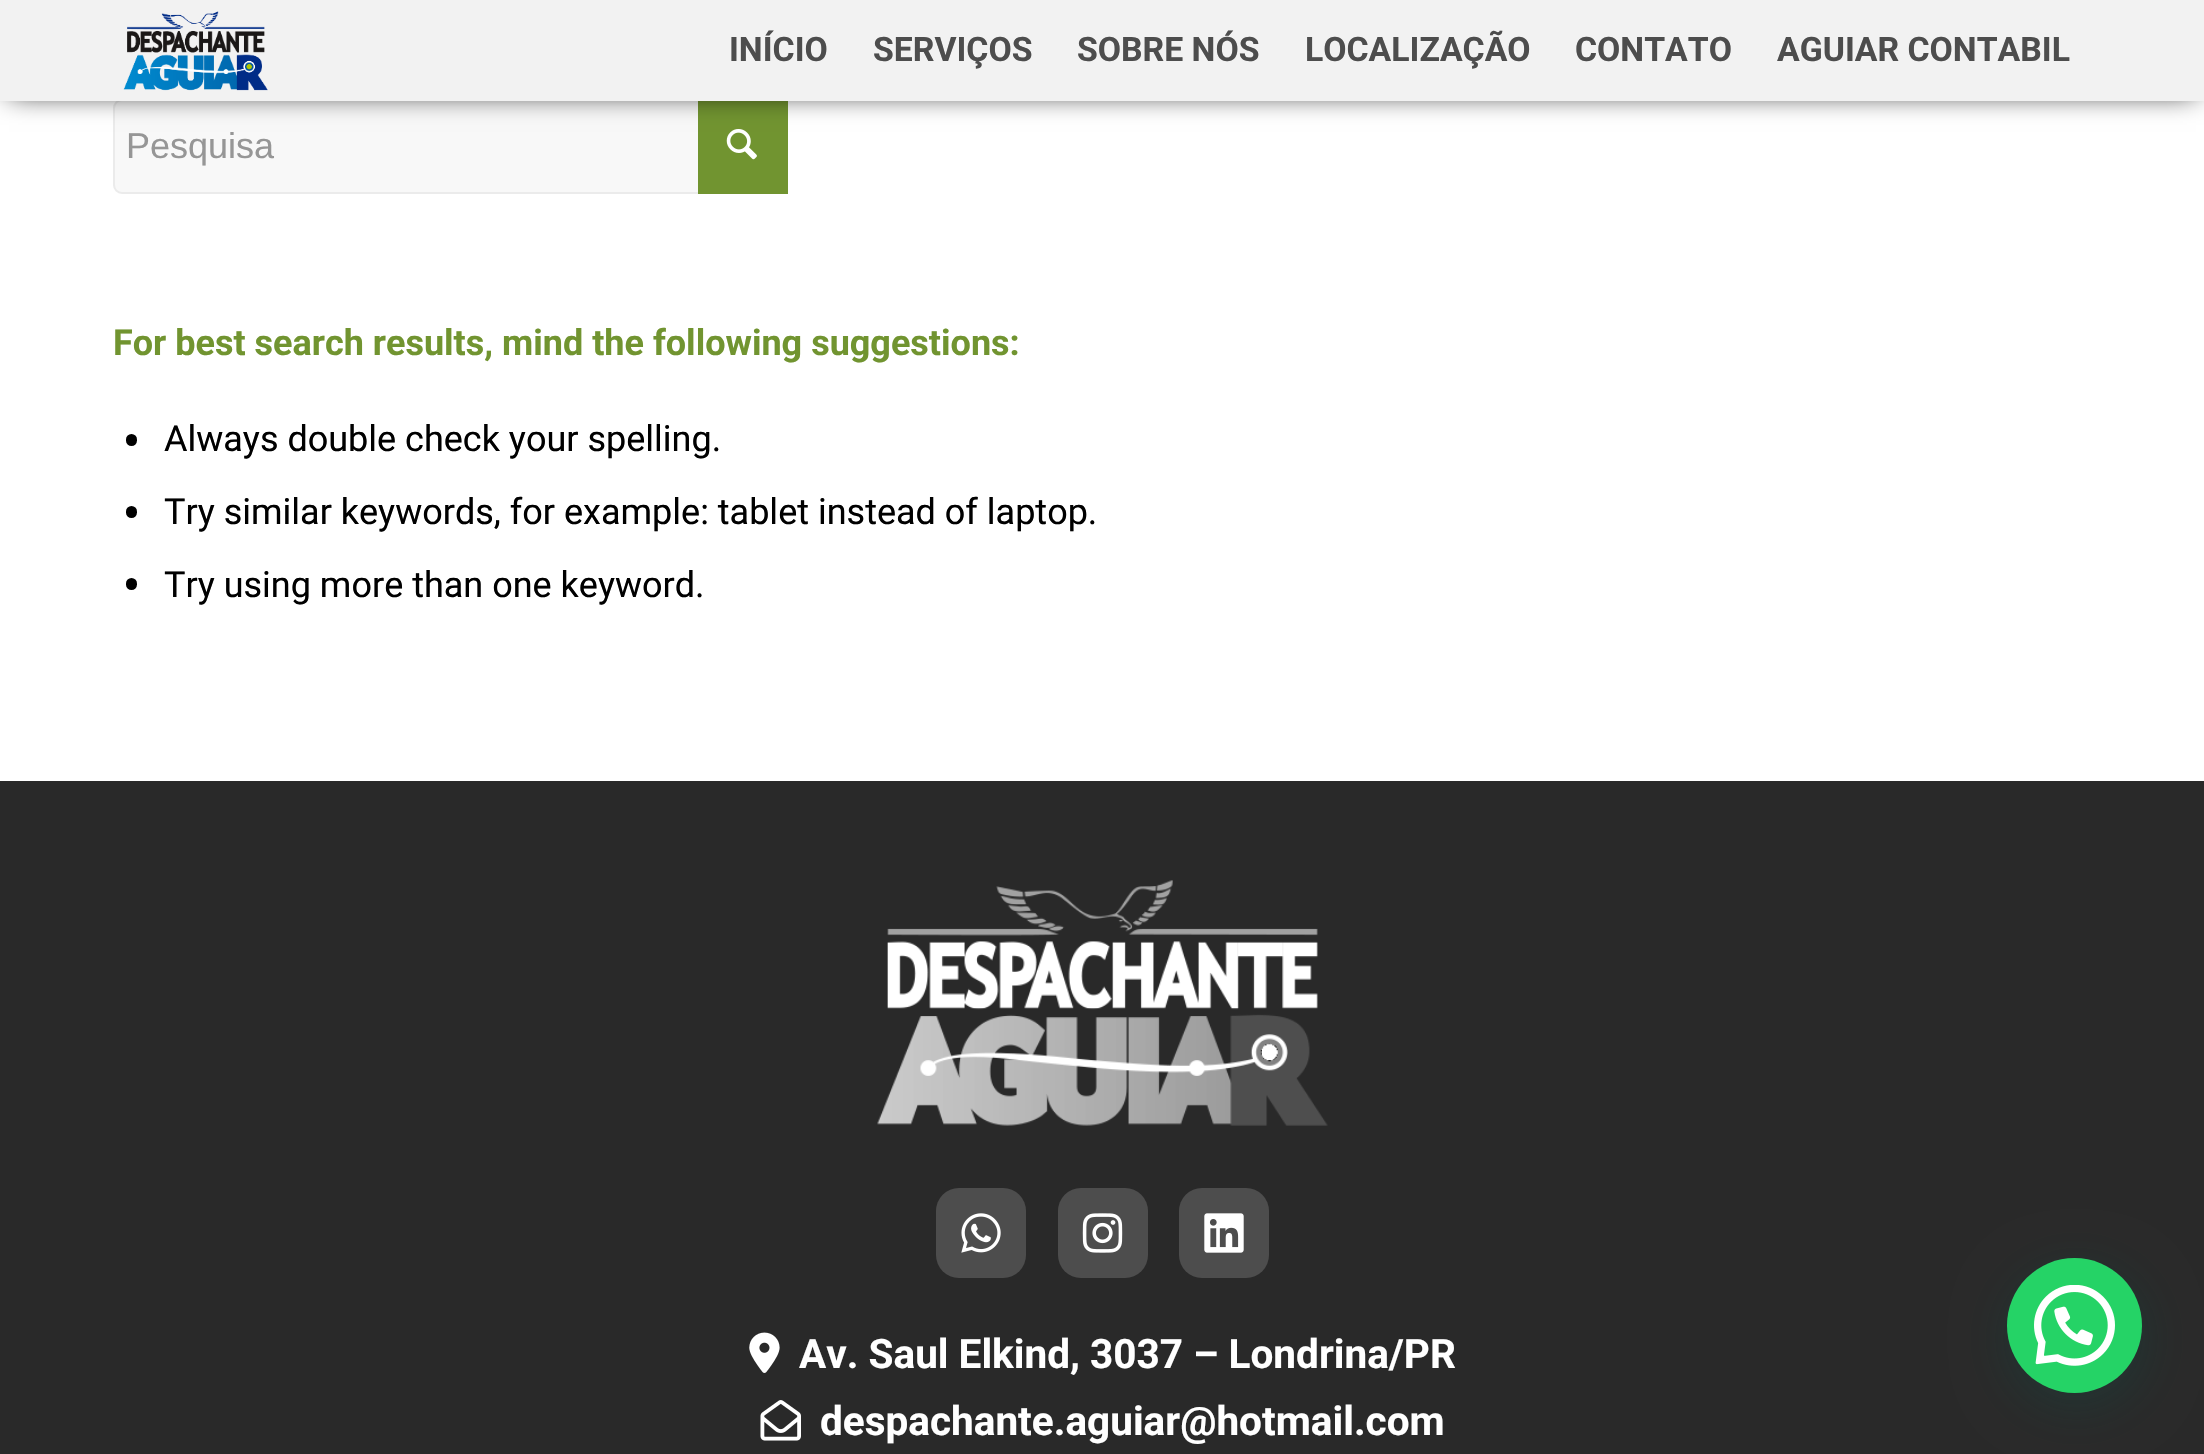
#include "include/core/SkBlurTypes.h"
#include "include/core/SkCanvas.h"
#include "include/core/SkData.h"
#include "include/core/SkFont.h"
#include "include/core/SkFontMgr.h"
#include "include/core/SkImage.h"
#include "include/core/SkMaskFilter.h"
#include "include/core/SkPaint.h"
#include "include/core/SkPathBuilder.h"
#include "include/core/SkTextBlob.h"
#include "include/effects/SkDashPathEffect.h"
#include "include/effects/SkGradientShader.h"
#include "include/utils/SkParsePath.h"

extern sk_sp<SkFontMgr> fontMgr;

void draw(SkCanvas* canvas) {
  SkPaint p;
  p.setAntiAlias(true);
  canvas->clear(SK_ColorWHITE);
  p.setColor(SkColorSetRGB(248, 248, 248));
  canvas->drawRoundRect(SkRect::MakeLTRB(114, 100, 787, 193), 8, 8, p);
  p.setStyle(SkPaint::kStroke_Style);
  p.setStrokeWidth(2);
  p.setColor(SkColorSetRGB(235, 235, 235));
  canvas->drawRoundRect(SkRect::MakeLTRB(114, 100, 787, 193), 8, 8, p);
  p.setStyle(SkPaint::kFill_Style);
  p.setColor(SkColorSetRGB(113, 148, 48));
  canvas->drawRect(SkRect::MakeLTRB(698, 101, 788, 194), p);
  canvas->drawImageRect(SkImages::DeferredFromEncodedData(SkData::MakeFromFileName("images/2.png")), SkRect::MakeLTRB(726, 129, 757, 160), SkSamplingOptions());
  p.setColor(SK_ColorBLACK);
  p.setMaskFilter(SkMaskFilter::MakeBlur(kNormal_SkBlurStyle, 13.5f));
  canvas->drawRect(SkRect::MakeLTRB(9, 9, 2196, 92), p);
  p.setMaskFilter(nullptr);
  p.setColor(SkColorSetRGB(242, 242, 242));
  canvas->drawRect(SkRect::MakeLTRB(0, 0, 2204, 101), p);
  canvas->drawImageRect(SkImages::DeferredFromEncodedData(SkData::MakeFromFileName("images/1.png")), SkRect::MakeLTRB(123, 11, 268, 91), SkSamplingOptions());
  p.setColor(SK_ColorBLACK);
  canvas->drawRoundRect(SkRect::MakeLTRB(126, 434, 137, 446), 5.5f, 5.5f, p);
  canvas->drawRoundRect(SkRect::MakeLTRB(126, 506, 137, 518), 5.5f, 5.5f, p);
  canvas->drawRoundRect(SkRect::MakeLTRB(126, 578, 137, 590), 5.5f, 5.5f, p);
  p.setColor(SkColorSetRGB(41, 41, 41));
  canvas->drawRect(SkRect::MakeLTRB(0, 781, 2204, 1454), p);
  canvas->drawImageRect(SkImages::DeferredFromEncodedData(SkData::MakeFromFileName("images/3.png")), SkRect::MakeLTRB(877, 880, 1328, 1126), SkSamplingOptions());
  p.setColor(SkColorSetRGB(77, 77, 77));
  canvas->drawRoundRect(SkRect::MakeLTRB(936, 1188, 1026, 1278), 23, 23, p);
  canvas->drawRoundRect(SkRect::MakeLTRB(1058, 1188, 1148, 1278), 23, 23, p);
  canvas->drawRoundRect(SkRect::MakeLTRB(1179, 1188, 1269, 1278), 23, 23, p);
  canvas->drawImageRect(SkImages::DeferredFromEncodedData(SkData::MakeFromFileName("images/4.png")), SkRect::MakeLTRB(961, 1213, 1001, 1253), SkSamplingOptions());
  canvas->drawImageRect(SkImages::DeferredFromEncodedData(SkData::MakeFromFileName("images/5.png")), SkRect::MakeLTRB(1082, 1213, 1123, 1253), SkSamplingOptions());
  canvas->drawImageRect(SkImages::DeferredFromEncodedData(SkData::MakeFromFileName("images/6.png")), SkRect::MakeLTRB(1204, 1213, 1244, 1253), SkSamplingOptions());
  canvas->drawImageRect(SkImages::DeferredFromEncodedData(SkData::MakeFromFileName("images/7.png")), SkRect::MakeLTRB(749, 1332, 780, 1373), SkSamplingOptions());
  canvas->drawImageRect(SkImages::DeferredFromEncodedData(SkData::MakeFromFileName("images/8.png")), SkRect::MakeLTRB(760, 1400, 801, 1441), SkSamplingOptions());
  p.setColor(SkColorSetARGB(61, 7, 94, 84));
  p.setMaskFilter(SkMaskFilter::MakeBlur(kNormal_SkBlurStyle, 27));
  canvas->drawRoundRect(SkRect::MakeLTRB(2009, 1271, 2144, 1406), 67.5f, 67.5f, p);
  p.setMaskFilter(nullptr);
  p.setColor(SkColorSetRGB(37, 211, 102));
  canvas->drawCircle(2074.5f, 1325.5f, 67.5f, p);
  canvas->drawImageRect(SkImages::DeferredFromEncodedData(SkData::MakeFromFileName("images/9.png")), SkRect::MakeLTRB(2034, 1285, 2115, 1366), SkSamplingOptions());
  SkFont font1(fontMgr->matchFamilyStyle("Roboto", SkFontStyle::Bold()), 33.75f);
  font1.setSubpixel(true);
  p.setColor(SkColorSetRGB(77, 77, 77));
  canvas->drawString("INÍCIO", 729, 61, font1, p);
  canvas->drawString("SERVIÇOS", 873, 61, font1, p);
  canvas->drawString("SOBRE NÓS", 1077, 61, font1, p);
  canvas->drawString("LOCALIZAÇÃO", 1305, 61, font1, p);
  canvas->drawString("CONTATO", 1575, 61, font1, p);
  canvas->drawString("AGUIAR CONTABIL", 1777, 61, font1, p);
  SkFont font2(fontMgr->matchFamilyStyle("Liberation Sans", SkFontStyle::Normal()), 36);
  font2.setSubpixel(true);
  p.setColor(SkColorSetRGB(150, 150, 150));
  canvas->drawString("Pesquisa", 126, 158, font2, p);
  SkFont font3(fontMgr->matchFamilyStyle("Roboto", SkFontStyle::Bold()), 36);
  font3.setSubpixel(true);
  p.setColor(SkColorSetRGB(113, 148, 48));
  canvas->drawString("For best search results, mind the following suggestions:", 113, 355, font3, p);
  SkFont font4(fontMgr->matchFamilyStyle("Roboto", SkFontStyle::Normal()), 36);
  font4.setSubpixel(true);
  p.setColor(SK_ColorBLACK);
  canvas->drawString("Always double check your spelling.", 164, 451, font4, p);
  canvas->drawString("Try similar keywords, for example: tablet instead of laptop.", 164, 524, font4, p);
  canvas->drawString("Try using more than one keyword.", 164, 597, font4, p);
  SkFont font5(fontMgr->matchFamilyStyle("Roboto", SkFontStyle::Bold()), 40.5f);
  font5.setSubpixel(true);
  p.setColor(SK_ColorWHITE);
  canvas->drawString("Av. Saul Elkind, 3037 – Londrina/PR", 799, 1368, font5, p);
  canvas->drawString("despachante.aguiar@hotmail.com", 820, 1435, font5, p);
}
